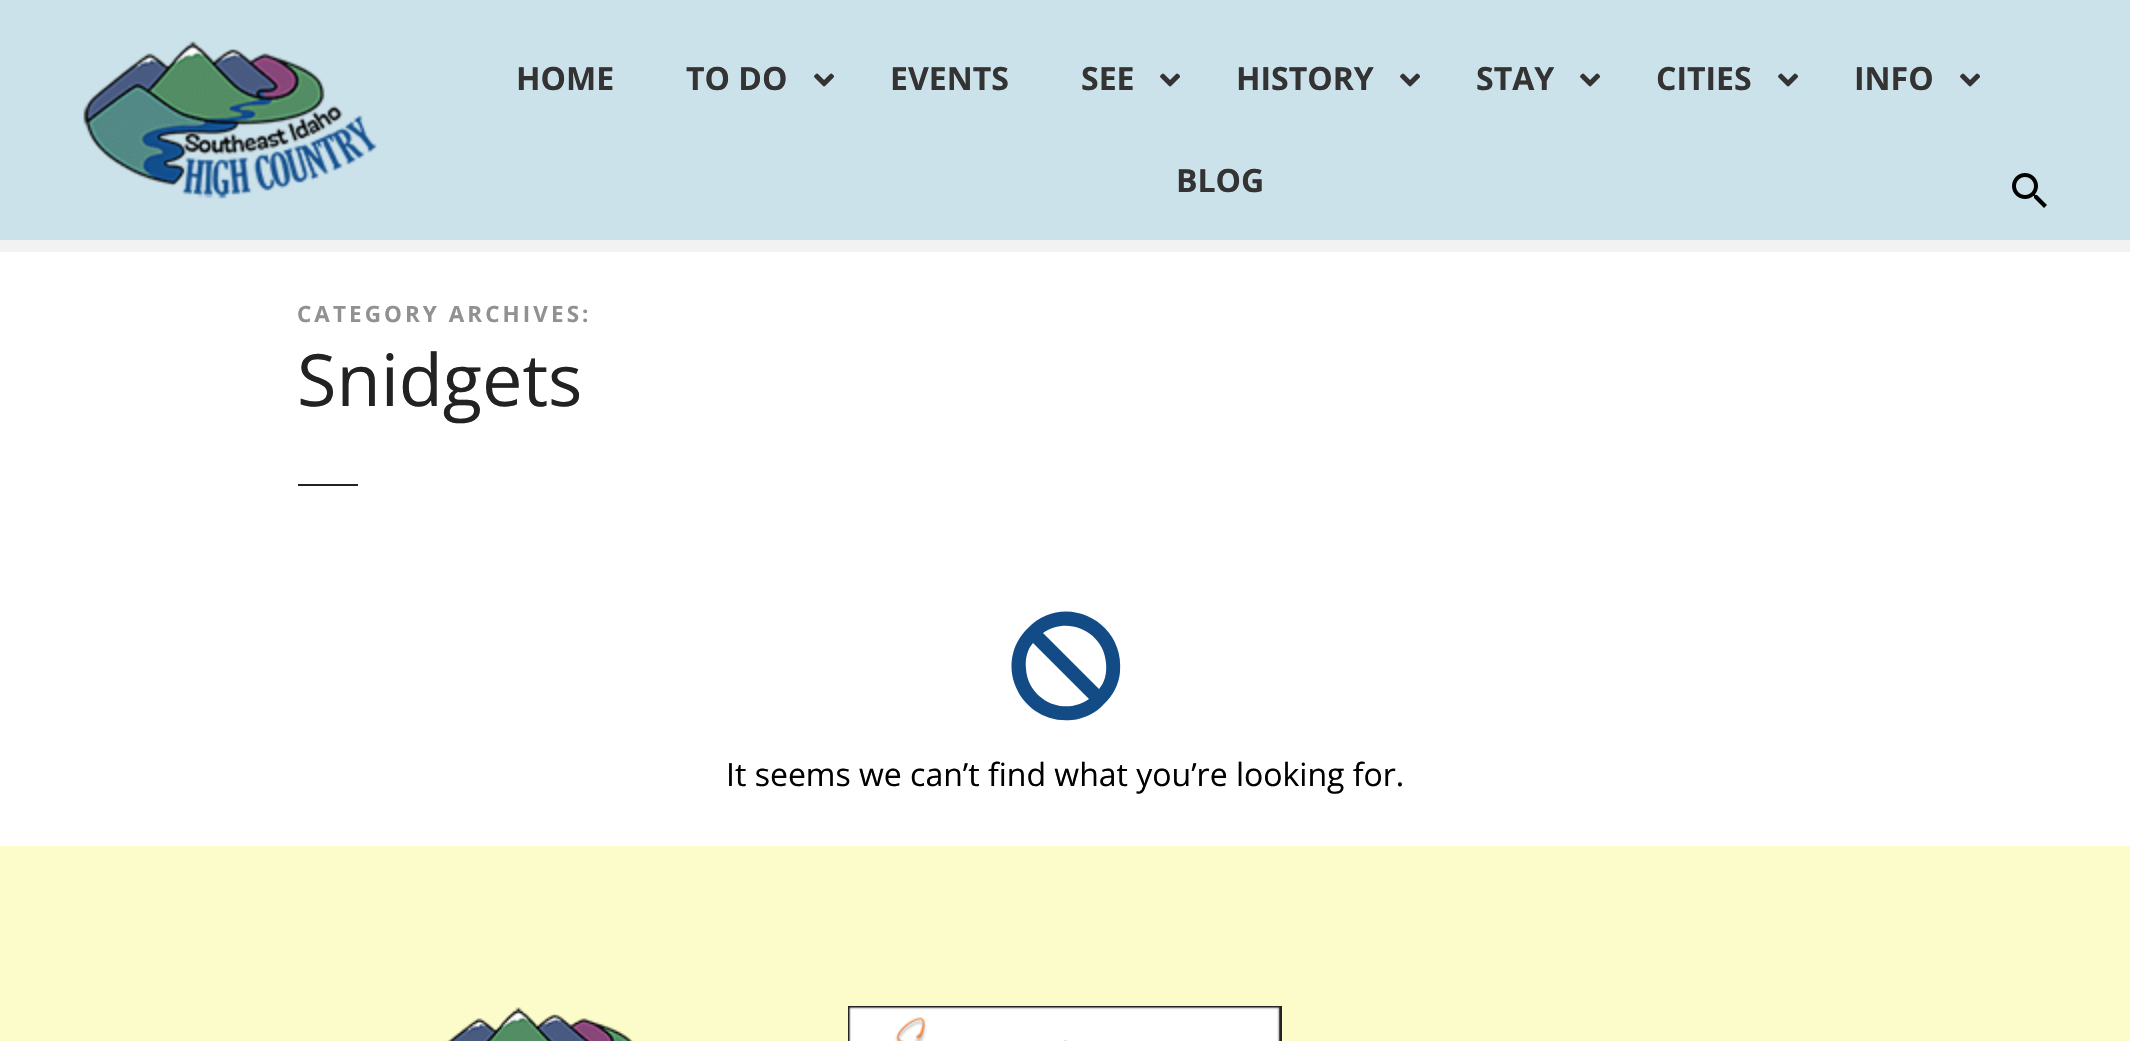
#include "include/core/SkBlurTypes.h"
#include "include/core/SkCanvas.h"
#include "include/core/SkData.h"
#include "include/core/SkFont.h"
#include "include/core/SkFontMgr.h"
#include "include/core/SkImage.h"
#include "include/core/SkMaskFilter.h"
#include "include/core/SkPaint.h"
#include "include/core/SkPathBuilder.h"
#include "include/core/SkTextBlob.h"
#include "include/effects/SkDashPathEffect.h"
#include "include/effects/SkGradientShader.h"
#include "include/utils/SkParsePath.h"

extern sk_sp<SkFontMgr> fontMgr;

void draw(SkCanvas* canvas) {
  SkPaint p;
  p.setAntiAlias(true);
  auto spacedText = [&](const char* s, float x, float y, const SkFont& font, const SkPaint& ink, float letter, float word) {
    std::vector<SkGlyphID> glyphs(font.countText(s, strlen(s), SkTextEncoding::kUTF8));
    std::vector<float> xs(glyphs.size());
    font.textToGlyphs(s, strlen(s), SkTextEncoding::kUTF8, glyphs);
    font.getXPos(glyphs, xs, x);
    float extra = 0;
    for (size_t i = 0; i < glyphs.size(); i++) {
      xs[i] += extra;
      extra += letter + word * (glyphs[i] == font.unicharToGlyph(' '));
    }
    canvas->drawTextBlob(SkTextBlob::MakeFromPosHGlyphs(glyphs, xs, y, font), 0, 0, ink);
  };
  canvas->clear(SK_ColorWHITE);
  p.setColor(SkColorSetRGB(204, 226, 234));
  canvas->drawRect(SkRect::MakeLTRB(0, 0, 2130, 240), p);
  canvas->drawImageRect(SkImages::DeferredFromEncodedData(SkData::MakeFromFileName("images/1.png")), SkRect::MakeLTRB(83, 41, 377, 199), SkSamplingOptions());
  canvas->drawImageRect(SkImages::DeferredFromEncodedData(SkData::MakeFromFileName("images/2.png")), SkRect::MakeLTRB(814, 73, 834, 87), SkSamplingOptions());
  canvas->drawImageRect(SkImages::DeferredFromEncodedData(SkData::MakeFromFileName("images/2.png")), SkRect::MakeLTRB(1160, 73, 1180, 87), SkSamplingOptions());
  canvas->drawImageRect(SkImages::DeferredFromEncodedData(SkData::MakeFromFileName("images/2.png")), SkRect::MakeLTRB(1400, 73, 1420, 87), SkSamplingOptions());
  canvas->drawImageRect(SkImages::DeferredFromEncodedData(SkData::MakeFromFileName("images/2.png")), SkRect::MakeLTRB(1580, 73, 1600, 87), SkSamplingOptions());
  canvas->drawImageRect(SkImages::DeferredFromEncodedData(SkData::MakeFromFileName("images/2.png")), SkRect::MakeLTRB(1778, 73, 1798, 87), SkSamplingOptions());
  canvas->drawImageRect(SkImages::DeferredFromEncodedData(SkData::MakeFromFileName("images/2.png")), SkRect::MakeLTRB(1960, 73, 1980, 87), SkSamplingOptions());
  canvas->drawImageRect(SkImages::DeferredFromEncodedData(SkData::MakeFromFileName("images/3.png")), SkRect::MakeLTRB(2012, 173, 2047, 208), SkSamplingOptions());
  p.setColor(SkColorSetRGB(242, 242, 242));
  canvas->drawRect(SkRect::MakeLTRB(0, 240, 2130, 252), p);
  p.setColor(SkColorSetRGB(34, 34, 34));
  canvas->drawRect(SkRect::MakeLTRB(298, 484, 358, 486), p);
  p.setColor(SkColorSetRGB(18, 75, 133));
  canvas->drawPath(SkPathBuilder().moveTo(1028, 628).cubicTo(1064, 591, 1125, 621, 1120, 672).cubicTo(1119, 684, 1113, 696, 1104, 704).cubicTo(1096, 713, 1084, 719, 1072, 720).cubicTo(1021, 725, 991, 664, 1028, 628).close().moveTo(1106, 663).cubicTo(1104, 632, 1068, 615, 1043, 633).lineTo(1099, 689).cubicTo(1105, 682, 1107, 673, 1106, 663).close().moveTo(1026, 669).cubicTo(1028, 700, 1064, 717, 1089, 699).lineTo(1033, 643).cubicTo(1027, 650, 1025, 659, 1026, 669).close().detach(), p);
  p.setColor(SkColorSetRGB(251, 252, 202));
  canvas->drawRect(SkRect::MakeLTRB(0, 846, 2130, 1041), p);
  canvas->drawImageRect(SkImages::DeferredFromEncodedData(SkData::MakeFromFileName("images/4.png")), SkRect::MakeLTRB(447, 1007, 633, 1041), SkSamplingOptions());
  canvas->drawImageRect(SkImages::DeferredFromEncodedData(SkData::MakeFromFileName("images/5.png")), SkRect::MakeLTRB(848, 1006, 1282, 1041), SkSamplingOptions());
  SkFont font1(fontMgr->matchFamilyStyle("Open Sans", SkFontStyle::Bold()), 32);
  font1.setSubpixel(true);
  p.setColor(SkColorSetRGB(51, 51, 51));
  canvas->drawString("HOME", 516, 90, font1, p);
  canvas->drawString("TO DO", 686, 90, font1, p);
  canvas->drawString("EVENTS", 890, 90, font1, p);
  canvas->drawString("SEE", 1081, 90, font1, p);
  canvas->drawString("HISTORY", 1236, 90, font1, p);
  canvas->drawString("STAY", 1476, 90, font1, p);
  canvas->drawString("CITIES", 1656, 90, font1, p);
  canvas->drawString("INFO", 1854, 90, font1, p);
  canvas->drawString("BLOG", 1176, 192, font1, p);
  SkFont font2(fontMgr->matchFamilyStyle("Open Sans", SkFontStyle::Bold()), 22.4f);
  font2.setSubpixel(true);
  p.setColor(SkColorSetRGB(145, 145, 145));
  spacedText("CATEGORY ARCHIVES:", 297, 322, font2, p, 3.1f, 0);
  SkFont font3(fontMgr->matchFamilyStyle("Open Sans", SkFontStyle::Normal()), 72);
  font3.setSubpixel(true);
  p.setColor(SkColorSetRGB(34, 34, 34));
  canvas->drawString("Snidgets", 297, 406, font3, p);
  SkFont font4(fontMgr->matchFamilyStyle("Open Sans", SkFontStyle::Normal()), 32);
  font4.setSubpixel(true);
  p.setColor(SK_ColorBLACK);
  canvas->drawString("It seems we can’t find what you’re looking for.", 726, 786, font4, p);
}
